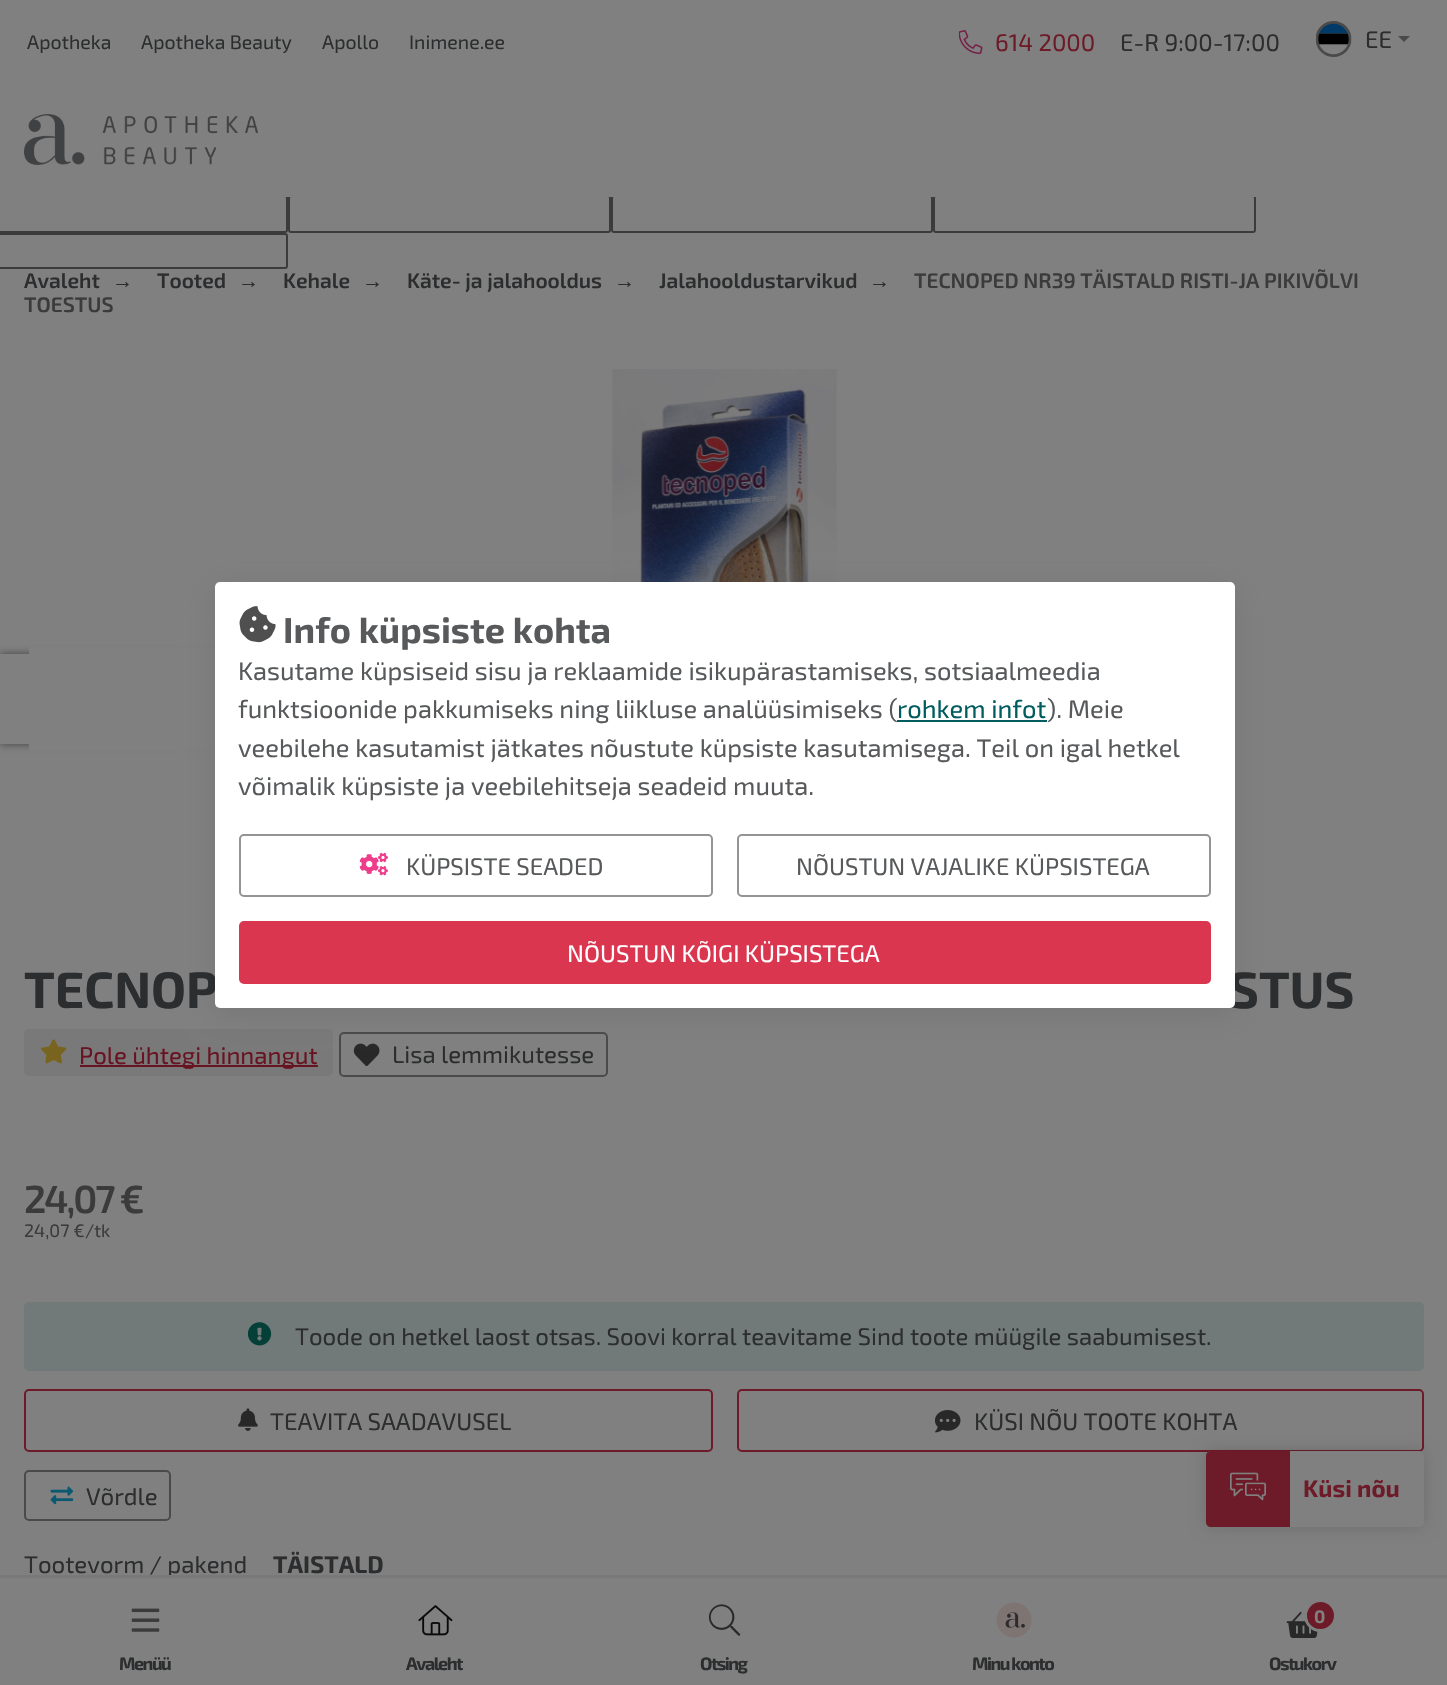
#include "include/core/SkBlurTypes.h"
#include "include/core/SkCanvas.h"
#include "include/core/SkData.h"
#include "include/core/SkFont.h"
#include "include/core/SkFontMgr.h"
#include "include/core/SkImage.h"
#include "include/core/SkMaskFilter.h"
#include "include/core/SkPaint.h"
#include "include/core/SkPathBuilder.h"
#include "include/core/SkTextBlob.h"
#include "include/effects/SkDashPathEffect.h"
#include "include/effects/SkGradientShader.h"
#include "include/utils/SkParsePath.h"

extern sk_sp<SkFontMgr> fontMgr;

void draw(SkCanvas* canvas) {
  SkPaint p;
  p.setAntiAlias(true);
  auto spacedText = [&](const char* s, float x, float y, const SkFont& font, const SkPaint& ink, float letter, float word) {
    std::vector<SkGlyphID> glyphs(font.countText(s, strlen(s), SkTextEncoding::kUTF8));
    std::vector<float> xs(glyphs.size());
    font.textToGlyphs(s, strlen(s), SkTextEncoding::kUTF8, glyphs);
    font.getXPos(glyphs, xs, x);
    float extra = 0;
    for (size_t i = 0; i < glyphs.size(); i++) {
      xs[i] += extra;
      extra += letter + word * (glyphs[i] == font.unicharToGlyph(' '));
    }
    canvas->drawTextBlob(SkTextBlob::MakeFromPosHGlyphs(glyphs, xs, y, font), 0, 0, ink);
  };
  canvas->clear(SkColorSetRGB(128, 128, 128));
  canvas->drawImageRect(SkImages::DeferredFromEncodedData(SkData::MakeFromFileName("images/1.png")), SkRect::MakeLTRB(959, 30, 983, 54), SkSamplingOptions());
  canvas->drawImageRect(SkImages::DeferredFromEncodedData(SkData::MakeFromFileName("images/2.png")), SkRect::MakeLTRB(1316, 21, 1352, 57), SkSamplingOptions());
  p.setColor(SkColorSetRGB(74, 74, 74));
  canvas->drawPath(SkPathBuilder().moveTo(1398, 36).lineTo(1410, 36).lineTo(1404, 42).close().detach(), p);
  canvas->save();
  canvas->clipPath(SkPathBuilder(SkPathFillType::kEvenOdd).moveTo(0, 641).lineTo(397, 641).lineTo(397, 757).lineTo(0, 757).close().moveTo(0, 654).lineTo(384, 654).lineTo(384, 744).lineTo(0, 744).close().detach(), true);
  p.setColor(SkColorSetRGB(64, 64, 64));
  p.setMaskFilter(SkMaskFilter::MakeBlur(kNormal_SkBlurStyle, 4));
  canvas->drawRect(SkRect::MakeLTRB(0, 654, 384, 744), p);
  p.setMaskFilter(nullptr);
  canvas->restore();
  p.setColor(SkColorSetRGB(128, 128, 128));
  canvas->drawRect(SkRect::MakeLTRB(29, 647, 391, 751), p);
  canvas->drawImageRect(SkImages::DeferredFromEncodedData(SkData::MakeFromFileName("images/3.png")), SkRect::MakeLTRB(612, 369, 837, 582), SkSamplingOptions());
  p.setColor(SkColorSetRGB(121, 121, 121));
  canvas->drawRoundRect(SkRect::MakeLTRB(24, 1029, 333, 1076), 5, 5, p);
  canvas->drawImageRect(SkImages::DeferredFromEncodedData(SkData::MakeFromFileName("images/4.png")), SkRect::MakeLTRB(41, 1039, 67, 1064), SkSamplingOptions());
  p.setColor(SkColorSetRGB(104, 19, 33));
  canvas->drawRect(SkRect::MakeLTRB(80, 1065, 318, 1067), p);
  p.setStyle(SkPaint::kStroke_Style);
  p.setStrokeWidth(2);
  p.setColor(SkColorSetRGB(74, 74, 74));
  canvas->drawRoundRect(SkRect::MakeLTRB(340, 1033, 607, 1076), 4, 4, p);
  canvas->drawImageRect(SkImages::DeferredFromEncodedData(SkData::MakeFromFileName("images/5.png")), SkRect::MakeLTRB(353, 1043, 380, 1066), SkSamplingOptions());
  p.setStyle(SkPaint::kFill_Style);
  p.setColor(SkColorSetRGB(114, 122, 121));
  canvas->drawRoundRect(SkRect::MakeLTRB(24, 1302, 1424, 1371), 5, 5, p);
  canvas->drawImageRect(SkImages::DeferredFromEncodedData(SkData::MakeFromFileName("images/6.png")), SkRect::MakeLTRB(248, 1322, 272, 1346), SkSamplingOptions());
  p.setStyle(SkPaint::kStroke_Style);
  p.setColor(SkColorSetRGB(109, 27, 40));
  canvas->drawRoundRect(SkRect::MakeLTRB(25, 1390, 712, 1451), 4, 4, p);
  canvas->drawImageRect(SkImages::DeferredFromEncodedData(SkData::MakeFromFileName("images/7.png")), SkRect::MakeLTRB(238, 1408, 258, 1431), SkSamplingOptions());
  canvas->drawRoundRect(SkRect::MakeLTRB(738, 1390, 1423, 1451), 4, 4, p);
  canvas->drawImageRect(SkImages::DeferredFromEncodedData(SkData::MakeFromFileName("images/8.png")), SkRect::MakeLTRB(935, 1410, 961, 1433), SkSamplingOptions());
  p.setColor(SkColorSetRGB(74, 74, 74));
  canvas->drawRoundRect(SkRect::MakeLTRB(25, 1471, 170, 1520), 4, 4, p);
  canvas->drawImageRect(SkImages::DeferredFromEncodedData(SkData::MakeFromFileName("images/9.png")), SkRect::MakeLTRB(50, 1486, 74, 1505), SkSamplingOptions());
  p.setStyle(SkPaint::kFill_Style);
  p.setColor(SkColorSetARGB(38, 0, 0, 0));
  p.setMaskFilter(SkMaskFilter::MakeBlur(kNormal_SkBlurStyle, 7.5f));
  canvas->drawRoundRect(SkRect::MakeLTRB(1206, 1451, 1424, 1527), 5, 5, p);
  p.setMaskFilter(nullptr);
  p.setColor(SkColorSetRGB(128, 128, 128));
  canvas->drawRoundRect(SkRect::MakeLTRB(1206, 1451, 1424, 1527), 5, 5, p);
  p.setColor(SkColorSetRGB(109, 27, 40));
  canvas->drawPath(SkPathBuilder().moveTo(1211, 1451).lineTo(1290, 1451).lineTo(1290, 1527).lineTo(1211, 1527).cubicTo(1208, 1527, 1206, 1525, 1206, 1522).lineTo(1206, 1456).cubicTo(1206, 1453, 1208, 1451, 1211, 1451).close().detach(), p);
  canvas->drawImageRect(SkImages::DeferredFromEncodedData(SkData::MakeFromFileName("images/10.png")), SkRect::MakeLTRB(1230, 1472, 1266, 1501), SkSamplingOptions());
  p.setStyle(SkPaint::kStroke_Style);
  p.setColor(SkColorSetRGB(59, 59, 59));
  canvas->drawRoundRect(SkRect::MakeLTRB(-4, 196, 287, 232), 2, 2, p);
  canvas->drawRoundRect(SkRect::MakeLTRB(289, 196, 610, 232), 2, 2, p);
  canvas->drawRoundRect(SkRect::MakeLTRB(612, 196, 932, 232), 2, 2, p);
  canvas->drawRoundRect(SkRect::MakeLTRB(934, 196, 1255, 232), 2, 2, p);
  p.setStyle(SkPaint::kFill_Style);
  p.setColor(SkColorSetRGB(128, 128, 128));
  canvas->drawRect(SkRect::MakeLTRB(0, 195, 1256, 197), p);
  canvas->drawImageRect(SkImages::DeferredFromEncodedData(SkData::MakeFromFileName("images/11.png")), SkRect::MakeLTRB(24, 114, 258, 165), SkSamplingOptions());
  canvas->drawImageRect(SkImages::DeferredFromEncodedData(SkData::MakeFromFileName("images/12.png")), SkRect::MakeLTRB(131, 1608, 160, 1632), SkSamplingOptions());
  canvas->drawImageRect(SkImages::DeferredFromEncodedData(SkData::MakeFromFileName("images/13.png")), SkRect::MakeLTRB(418, 1605, 453, 1636), SkSamplingOptions());
  canvas->drawImageRect(SkImages::DeferredFromEncodedData(SkData::MakeFromFileName("images/14.png")), SkRect::MakeLTRB(708, 1604, 741, 1636), SkSamplingOptions());
  canvas->drawImageRect(SkImages::DeferredFromEncodedData(SkData::MakeFromFileName("images/15.png")), SkRect::MakeLTRB(996, 1602, 1032, 1638), SkSamplingOptions());
  canvas->drawImageRect(SkImages::DeferredFromEncodedData(SkData::MakeFromFileName("images/16.png")), SkRect::MakeLTRB(1286, 1611, 1318, 1638), SkSamplingOptions());
  p.setStyle(SkPaint::kStroke_Style);
  p.setStrokeWidth(3);
  canvas->drawCircle(1320.5f, 1615.5f, 15, p);
  p.setStyle(SkPaint::kFill_Style);
  p.setColor(SkColorSetRGB(109, 27, 40));
  canvas->drawCircle(1320.5f, 1615.5f, 13.5f, p);
  p.setStyle(SkPaint::kStroke_Style);
  p.setStrokeWidth(2);
  p.setColor(SkColorSetRGB(59, 59, 59));
  canvas->drawRoundRect(SkRect::MakeLTRB(-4, 234, 287, 268), 2, 2, p);
  p.setStyle(SkPaint::kFill_Style);
  p.setColor(SkColorSetARGB(64, 87, 89, 91));
  p.setMaskFilter(SkMaskFilter::MakeBlur(kNormal_SkBlurStyle, 15));
  canvas->drawRoundRect(SkRect::MakeLTRB(215, 588, 1235, 1014), 5, 5, p);
  p.setMaskFilter(nullptr);
  SkFont font1(fontMgr->matchFamilyStyle("Exo 2", SkFontStyle::Normal()), 19.5f);
  font1.setSubpixel(true);
  p.setColor(SkColorSetRGB(44, 45, 46));
  canvas->drawString("Apotheka", 27, 49, font1, p);
  canvas->drawString("Apotheka Beauty", 141, 49, font1, p);
  canvas->drawString("Apollo", 322, 49, font1, p);
  canvas->drawString("Inimene.ee", 409, 49, font1, p);
  SkFont font2(fontMgr->matchFamilyStyle("Exo 2", SkFontStyle::Normal()), 24);
  font2.setSubpixel(true);
  p.setColor(SkColorSetRGB(109, 27, 40));
  canvas->drawString("614 2000", 995, 51, font2, p);
  p.setColor(SkColorSetRGB(44, 45, 46));
  canvas->drawString("E-R 9:00-17:00", 1120, 51, font2, p);
  canvas->drawString("EE", 1365, 48, font2, p);
  SkFont font3(fontMgr->matchFamilyStyle("Exo 2", SkFontStyle(600, SkFontStyle::kNormal_Width, SkFontStyle::kUpright_Slant)), 21);
  font3.setSubpixel(true);
  canvas->drawString("Avaleht", 24, 288, font3, p);
  SkFont font4(fontMgr->matchFamilyStyle("Liberation Sans", SkFontStyle::Bold()), 21);
  font4.setSubpixel(true);
  canvas->drawString("→", 112, 288, font4, p);
  canvas->drawString("Tooted", 157, 288, font3, p);
  canvas->drawString("→", 238, 288, font4, p);
  canvas->drawString("Kehale", 283, 288, font3, p);
  canvas->drawString("→", 362, 288, font4, p);
  canvas->drawString("Käte- ja jalahooldus", 407, 288, font3, p);
  canvas->drawString("→", 614, 288, font4, p);
  canvas->drawString("Jalahooldustarvikud", 659, 288, font3, p);
  canvas->drawString("→", 869, 288, font4, p);
  p.setColor(SkColorSetRGB(59, 59, 59));
  canvas->drawString("TECNOPED NR39 TÄISTALD RISTI-JA PIKIVÕLVI", 914, 288, font3, p);
  canvas->drawString("TOESTUS", 24, 312, font3, p);
  SkFont font5(fontMgr->matchFamilyStyle("Exo 2", SkFontStyle::Bold()), 51);
  font5.setSubpixel(true);
  p.setColor(SkColorSetRGB(44, 45, 46));
  canvas->drawString("TECNOP", 24, 1008, font5, p);
  canvas->drawString("STUS", 1229, 1008, font5, p);
  p.setColor(SkColorSetRGB(104, 19, 33));
  canvas->drawString("Pole ühtegi hinnangut", 79, 1064, font2, p);
  p.setColor(SkColorSetRGB(44, 45, 46));
  canvas->drawString("Lisa lemmikutesse", 392, 1063, font2, p);
  SkFont font6(fontMgr->matchFamilyStyle("Exo 2", SkFontStyle(600, SkFontStyle::kNormal_Width, SkFontStyle::kUpright_Slant)), 39);
  font6.setSubpixel(true);
  p.setColor(SkColorSetRGB(59, 59, 59));
  spacedText("24,07 €", 24, 1213, font6, p, -2.25f, 0);
  SkFont font7(fontMgr->matchFamilyStyle("Exo 2", SkFontStyle::Normal()), 18);
  font7.setSubpixel(true);
  canvas->drawString("24,07 €/tk", 24, 1237, font7, p);
  p.setColor(SkColorSetRGB(44, 45, 46));
  canvas->drawString("Toode on hetkel laost otsas. Soovi korral teavitame Sind toote müügile saabumisest.", 295, 1345, font2, p);
  canvas->drawString("TEAVITA SAADAVUSEL", 270, 1430, font2, p);
  canvas->drawString("KÜSI NÕU TOOTE KOHTA", 974, 1430, font2, p);
  canvas->drawString("Võrdle", 86, 1505, font2, p);
  canvas->drawString("Tootevorm / pakend", 24, 1573, font2, p);
  SkFont font8(fontMgr->matchFamilyStyle("Exo 2", SkFontStyle::Bold()), 24);
  font8.setSubpixel(true);
  canvas->drawString("TÄISTALD", 273, 1573, font8, p);
  p.setColor(SkColorSetRGB(109, 27, 40));
  canvas->drawString("Küsi nõu", 1303, 1497, font8, p);
  p.setColor(SkColorSetRGB(121, 121, 121));
  canvas->drawRect(SkRect::MakeLTRB(0, 1575, 1447, 1578), p);
  SkFont font9(fontMgr->matchFamilyStyle("Exo 2", SkFontStyle::Bold()), 18);
  font9.setSubpixel(true);
  p.setColor(SkColorSetRGB(44, 45, 46));
  spacedText("Menüü", 119, 1670, font9, p, -1.5f, 0);
  spacedText("Avaleht", 406, 1670, font9, p, -1.5f, 0);
  spacedText("Otsing", 700, 1670, font9, p, -1.5f, 0);
  spacedText("Minu konto", 972, 1670, font9, p, -1.5f, 0);
  p.setColor(SkColorSetRGB(128, 128, 128));
  spacedText("0", 1314, 1623, font9, p, -1.5f, 0);
  p.setColor(SkColorSetRGB(44, 45, 46));
  spacedText("Ostukorv", 1269, 1670, font9, p, -1.5f, 0);
  p.setColor(SK_ColorWHITE);
  canvas->drawRoundRect(SkRect::MakeLTRB(215, 582, 1235, 1008), 5, 5, p);
  canvas->drawImageRect(SkImages::DeferredFromEncodedData(SkData::MakeFromFileName("images/17.png")), SkRect::MakeLTRB(239, 606, 276, 643), SkSamplingOptions());
  SkFont font10(fontMgr->matchFamilyStyle("Exo 2", SkFontStyle::Bold()), 36);
  font10.setSubpixel(true);
  p.setColor(SkColorSetRGB(87, 89, 91));
  canvas->drawString("Info küpsiste kohta", 283, 643, font10, p);
  SkFont font11(fontMgr->matchFamilyStyle("Exo 2", SkFontStyle::Normal()), 25.5f);
  font11.setSubpixel(true);
  canvas->drawString("Kasutame küpsiseid sisu ja reklaamide isikupärastamiseks, sotsiaalmeedia", 238, 680, font11, p);
  canvas->drawString("funktsioonide pakkumiseks ning liikluse analüüsimiseks (", 238, 718, font11, p);
  p.setColor(SkColorSetRGB(0, 92, 94));
  canvas->drawString("rohkem infot", 897, 718, font11, p);
  canvas->drawRect(SkRect::MakeLTRB(897, 720, 1047, 722), p);
  p.setColor(SkColorSetRGB(87, 89, 91));
  canvas->drawString("). Meie", 1047, 718, font11, p);
  canvas->drawString("veebilehe kasutamist jätkates nõustute küpsiste kasutamisega. Teil on igal hetkel", 238, 757, font11, p);
  canvas->drawString("võimalik küpsiste ja veebilehitseja seadeid muuta.", 238, 795, font11, p);
  p.setStyle(SkPaint::kStroke_Style);
  p.setColor(SkColorSetRGB(148, 148, 148));
  canvas->drawRoundRect(SkRect::MakeLTRB(240, 835, 712, 896), 4, 4, p);
  canvas->drawImageRect(SkImages::DeferredFromEncodedData(SkData::MakeFromFileName("images/18.png")), SkRect::MakeLTRB(359, 852, 388, 876), SkSamplingOptions());
  p.setStyle(SkPaint::kFill_Style);
  p.setColor(SkColorSetRGB(87, 89, 91));
  canvas->drawString("KÜPSISTE SEADED", 406, 875, font2, p);
  p.setStyle(SkPaint::kStroke_Style);
  p.setColor(SkColorSetRGB(148, 148, 148));
  canvas->drawRoundRect(SkRect::MakeLTRB(738, 835, 1210, 896), 4, 4, p);
  p.setStyle(SkPaint::kFill_Style);
  p.setColor(SkColorSetRGB(87, 89, 91));
  canvas->drawString("NÕUSTUN VAJALIKE KÜPSISTEGA", 796, 875, font2, p);
  p.setColor(SkColorSetRGB(218, 54, 80));
  canvas->drawRoundRect(SkRect::MakeLTRB(240, 922, 1210, 983), 4, 4, p);
  p.setStyle(SkPaint::kStroke_Style);
  canvas->drawRoundRect(SkRect::MakeLTRB(240, 922, 1210, 983), 4, 4, p);
  p.setStyle(SkPaint::kFill_Style);
  p.setColor(SK_ColorWHITE);
  canvas->drawString("NÕUSTUN KÕIGI KÜPSISTEGA", 567, 962, font2, p);
}
